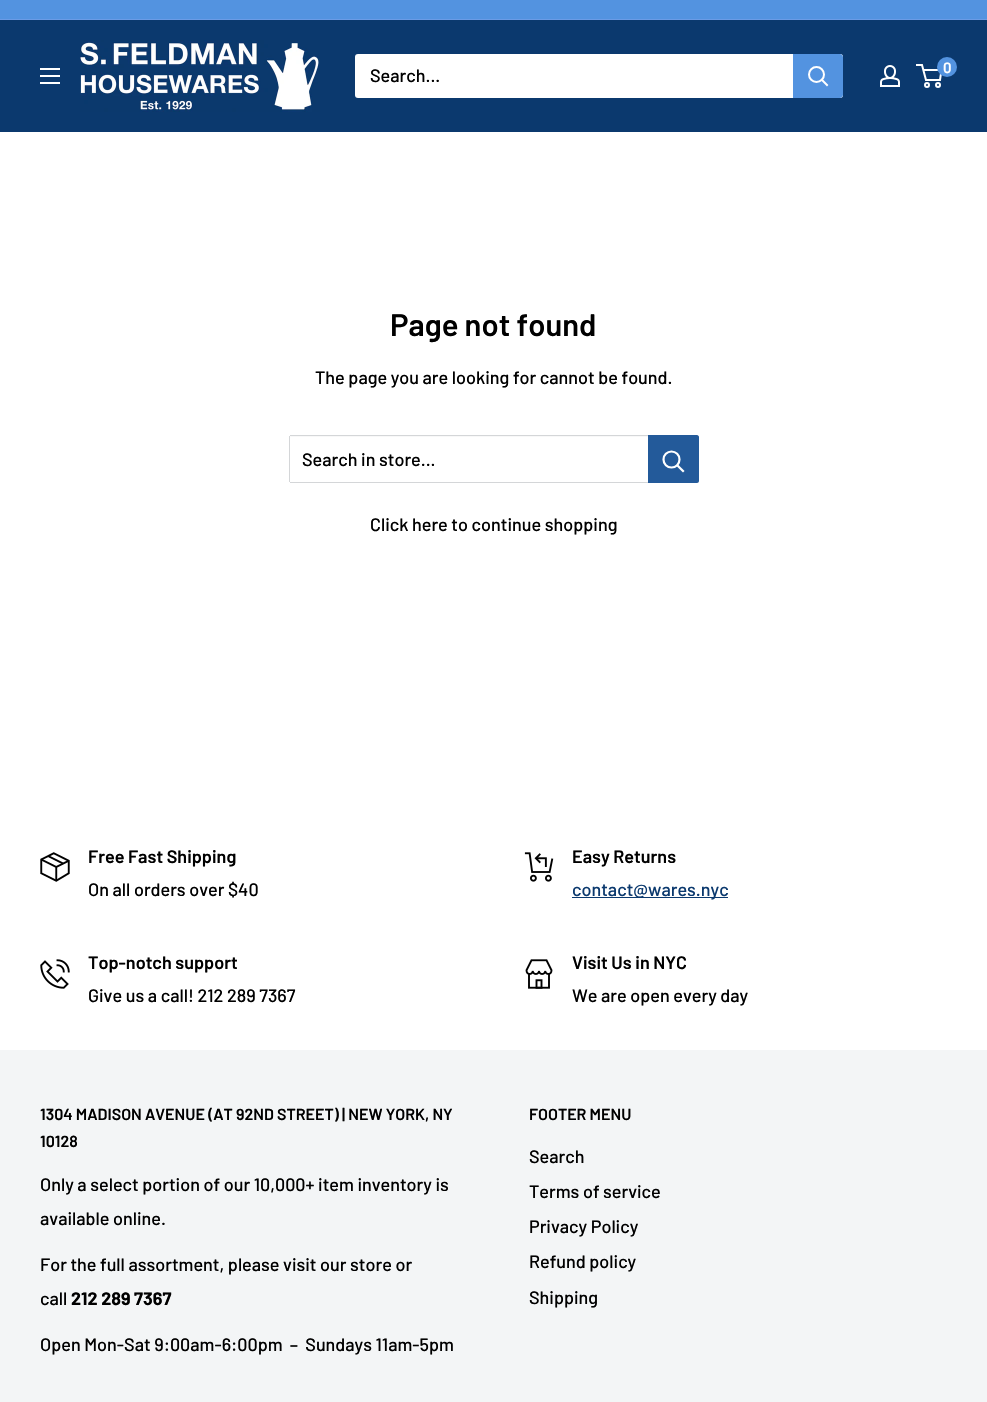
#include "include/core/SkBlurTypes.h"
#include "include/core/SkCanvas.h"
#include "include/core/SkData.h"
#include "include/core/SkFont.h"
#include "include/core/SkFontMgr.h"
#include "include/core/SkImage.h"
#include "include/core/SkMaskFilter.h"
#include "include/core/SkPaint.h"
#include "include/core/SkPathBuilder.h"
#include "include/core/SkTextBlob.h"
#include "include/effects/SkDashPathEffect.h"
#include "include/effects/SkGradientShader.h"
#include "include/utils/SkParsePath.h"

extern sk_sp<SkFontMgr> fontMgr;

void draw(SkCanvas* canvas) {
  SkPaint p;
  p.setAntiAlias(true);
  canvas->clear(SK_ColorWHITE);
  p.setColor(SkColorSetRGB(83, 147, 224));
  canvas->drawRect(SkRect::MakeLTRB(0, 0, 987, 19), p);
  p.setColor(SkColorSetRGB(107, 155, 229));
  canvas->drawRect(SkRect::MakeLTRB(0, 19, 987, 20), p);
  p.setColor(SkColorSetRGB(11, 57, 110));
  canvas->drawRect(SkRect::MakeLTRB(0, 20, 987, 132), p);
  canvas->drawImageRect(SkImages::DeferredFromEncodedData(SkData::MakeFromFileName("images/1.png")), SkRect::MakeLTRB(40, 68, 60, 84), SkSamplingOptions());
  canvas->drawImageRect(SkImages::DeferredFromEncodedData(SkData::MakeFromFileName("images/2.png")), SkRect::MakeLTRB(80, 40, 320, 112), SkSamplingOptions());
  p.setColor(SK_ColorWHITE);
  canvas->drawRoundRect(SkRect::MakeLTRB(355, 54, 843, 98), 3, 3, p);
  p.setColor(SkColorSetRGB(83, 147, 224));
  canvas->drawPath(SkPathBuilder().moveTo(793, 54).lineTo(840, 54).cubicTo(841.5f, 54, 843, 55.5f, 843, 57).lineTo(843, 95).cubicTo(843, 96.5f, 841.5f, 98, 840, 98).lineTo(793, 98).close().detach(), p);
  p.setStyle(SkPaint::kStroke_Style);
  p.setStrokeWidth(2);
  p.setStrokeCap(SkPaint::kSquare_Cap);
  p.setColor(SK_ColorWHITE);
  canvas->drawPath(SkPathBuilder().moveTo(827, 85).lineTo(822, 80).detach(), p);
  p.setStrokeCap(SkPaint::kButt_Cap);
  canvas->drawCircle(816.5f, 74.5f, 7.5f, p);
  canvas->drawImageRect(SkImages::DeferredFromEncodedData(SkData::MakeFromFileName("images/3.png")), SkRect::MakeLTRB(880, 65, 900, 87), SkSamplingOptions());
  canvas->drawCircle(927, 85, 2, p);
  canvas->drawCircle(938, 85, 2, p);
  canvas->drawPath(SkPathBuilder().moveTo(923.5f, 70).lineTo(941.5f, 70).lineTo(940, 80).lineTo(926, 80).lineTo(922, 65).lineTo(916, 65).detach(), p);
  p.setStyle(SkPaint::kFill_Style);
  p.setColor(SkColorSetRGB(83, 147, 224));
  canvas->drawCircle(947, 67, 10, p);
  p.setColor(SkColorSetRGB(248, 248, 248));
  canvas->drawPath(SkPathBuilder().moveTo(291, 437).lineTo(648, 437).lineTo(648, 436).lineTo(291, 436).cubicTo(290, 436, 290, 437, 290, 438).cubicTo(290, 437, 290, 437, 291, 437).close().detach(), p);
  p.setColor(SkColorSetRGB(212, 214, 216));
  canvas->drawRect(SkRect::MakeLTRB(290, 435, 648, 436), p);
  canvas->drawRect(SkRect::MakeLTRB(290, 482, 648, 483), p);
  canvas->drawRect(SkRect::MakeLTRB(289, 436, 290, 482), p);
  p.setColor(SkColorSetRGB(35, 90, 154));
  canvas->drawPath(SkPathBuilder().moveTo(648, 435).lineTo(697, 435).cubicTo(698, 435, 699, 436, 699, 437).lineTo(699, 481).cubicTo(699, 482, 698, 483, 697, 483).lineTo(648, 483).close().detach(), p);
  p.setStyle(SkPaint::kStroke_Style);
  p.setStrokeWidth(2.2f);
  p.setStrokeCap(SkPaint::kSquare_Cap);
  p.setColor(SK_ColorWHITE);
  canvas->drawPath(SkPathBuilder().moveTo(683, 471).lineTo(677.5f, 465.5f).detach(), p);
  p.setStrokeCap(SkPaint::kButt_Cap);
  canvas->drawCircle(671.5f, 459.5f, 8, p);
  canvas->drawImageRect(SkImages::DeferredFromEncodedData(SkData::MakeFromFileName("images/4.png")), SkRect::MakeLTRB(40, 852, 70, 882), SkSamplingOptions());
  canvas->drawImageRect(SkImages::DeferredFromEncodedData(SkData::MakeFromFileName("images/5.png")), SkRect::MakeLTRB(524, 852, 554, 882), SkSamplingOptions());
  p.setStyle(SkPaint::kFill_Style);
  p.setColor(SkColorSetRGB(11, 57, 110));
  canvas->drawRect(SkRect::MakeLTRB(572, 897, 728, 898), p);
  canvas->drawImageRect(SkImages::DeferredFromEncodedData(SkData::MakeFromFileName("images/6.png")), SkRect::MakeLTRB(40, 959, 70, 989), SkSamplingOptions());
  canvas->drawImageRect(SkImages::DeferredFromEncodedData(SkData::MakeFromFileName("images/7.png")), SkRect::MakeLTRB(525, 959, 553, 989), SkSamplingOptions());
  p.setColor(SkColorSetRGB(243, 245, 246));
  canvas->drawRect(SkRect::MakeLTRB(0, 1050, 987, 1402), p);
  SkFont font1(fontMgr->matchFamilyStyle("Barlow", SkFontStyle(500, SkFontStyle::kNormal_Width, SkFontStyle::kUpright_Slant)), 18);
  font1.setSubpixel(true);
  p.setColor(SK_ColorBLACK);
  canvas->drawString("Search...", 370, 82, font1, p);
  SkFont font2(fontMgr->matchFamilyStyle("Barlow", SkFontStyle(600, SkFontStyle::kNormal_Width, SkFontStyle::kUpright_Slant)), 15);
  font2.setSubpixel(true);
  p.setColor(SK_ColorWHITE);
  canvas->drawString("0", 943, 73, font2, p);
  SkFont font3(fontMgr->matchFamilyStyle("Barlow", SkFontStyle(600, SkFontStyle::kNormal_Width, SkFontStyle::kUpright_Slant)), 31);
  font3.setSubpixel(true);
  p.setColor(SK_ColorBLACK);
  canvas->drawString("Page not found", 390, 336, font3, p);
  canvas->drawString("The page you are looking for cannot be found.", 315, 384, font1, p);
  canvas->drawString("Search in store...", 302, 466, font1, p);
  canvas->drawString("Click here to continue shopping", 370, 531, font1, p);
  SkFont font4(fontMgr->matchFamilyStyle("Barlow", SkFontStyle(600, SkFontStyle::kNormal_Width, SkFontStyle::kUpright_Slant)), 18);
  font4.setSubpixel(true);
  canvas->drawString("Free Fast Shipping", 88, 863, font4, p);
  canvas->drawString("On all orders over $40", 88, 896, font1, p);
  canvas->drawString("Easy Returns", 572, 863, font4, p);
  p.setColor(SkColorSetRGB(11, 57, 110));
  canvas->drawString("contact@wares.nyc", 572, 896, font1, p);
  p.setColor(SK_ColorBLACK);
  canvas->drawString("Top-notch support", 88, 969, font4, p);
  canvas->drawString("Give us a call! 212 289 7367", 88, 1002, font1, p);
  canvas->drawString("Visit Us in NYC", 572, 969, font4, p);
  canvas->drawString("We are open every day", 572, 1002, font1, p);
  SkFont font5(fontMgr->matchFamilyStyle("Barlow", SkFontStyle(600, SkFontStyle::kNormal_Width, SkFontStyle::kUpright_Slant)), 16);
  font5.setSubpixel(true);
  canvas->drawString("1304 MADISON AVENUE (AT 92ND STREET) | NEW YORK, NY", 40, 1120, font5, p);
  canvas->drawString("10128", 40, 1147, font5, p);
  canvas->drawString("Only a select portion of our 10,000+ item inventory is", 40, 1191, font1, p);
  canvas->drawString("available online.", 40, 1225, font1, p);
  canvas->drawString("For the full assortment, please visit our store or", 40, 1271, font1, p);
  canvas->drawString("call", 40, 1305, font1, p);
  SkFont font6(fontMgr->matchFamilyStyle("Barlow", SkFontStyle::Bold()), 18);
  font6.setSubpixel(true);
  canvas->drawString("212 289 7367", 71, 1305, font6, p);
  canvas->drawString("Open Mon-Sat 9:00am-6:00pm  –  Sundays 11am-5pm", 40, 1351, font1, p);
  canvas->drawString("FOOTER MENU", 529, 1120, font5, p);
  canvas->drawString("Search", 529, 1163, font1, p);
  canvas->drawString("Terms of service", 529, 1198, font1, p);
  canvas->drawString("Privacy Policy", 529, 1233, font1, p);
  canvas->drawString("Refund policy", 529, 1268, font1, p);
  canvas->drawString("Shipping", 529, 1304, font1, p);
}
